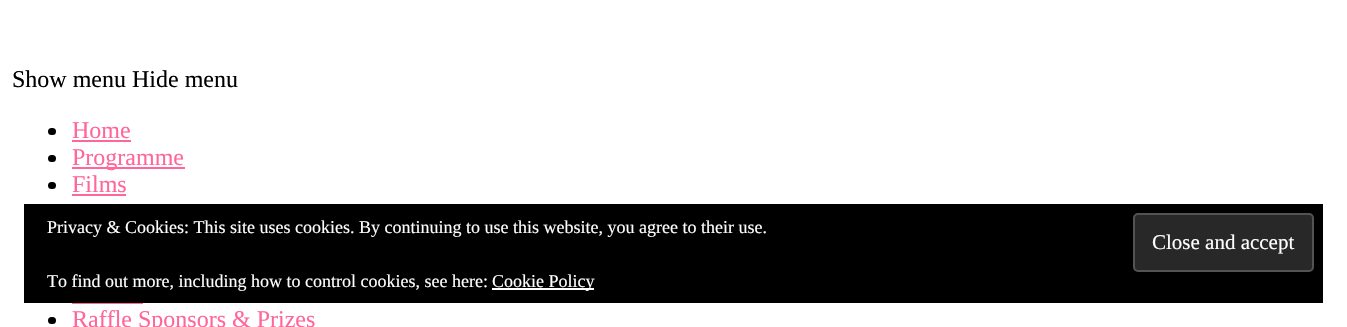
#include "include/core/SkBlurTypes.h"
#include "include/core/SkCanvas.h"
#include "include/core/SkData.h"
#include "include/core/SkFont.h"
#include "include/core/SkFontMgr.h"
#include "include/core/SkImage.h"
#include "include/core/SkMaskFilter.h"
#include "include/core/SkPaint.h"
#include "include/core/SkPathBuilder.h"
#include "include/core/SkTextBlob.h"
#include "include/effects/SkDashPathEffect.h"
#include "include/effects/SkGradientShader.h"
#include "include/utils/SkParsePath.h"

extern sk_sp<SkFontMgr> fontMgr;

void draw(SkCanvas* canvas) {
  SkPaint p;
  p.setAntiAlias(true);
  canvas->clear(SK_ColorWHITE);
  p.setColor(SK_ColorBLACK);
  canvas->drawRoundRect(SkRect::MakeLTRB(48, 128, 56, 135), 3.5f, 3.5f, p);
  p.setColor(SkColorSetRGB(255, 102, 153));
  canvas->drawRect(SkRect::MakeLTRB(72, 140, 131, 142), p);
  p.setColor(SK_ColorBLACK);
  canvas->drawRoundRect(SkRect::MakeLTRB(48, 155, 56, 162), 3.5f, 3.5f, p);
  p.setColor(SkColorSetRGB(255, 102, 153));
  canvas->drawRect(SkRect::MakeLTRB(72, 167, 185, 169), p);
  p.setColor(SK_ColorBLACK);
  canvas->drawRoundRect(SkRect::MakeLTRB(48, 182, 56, 189), 3.5f, 3.5f, p);
  p.setColor(SkColorSetRGB(255, 102, 153));
  canvas->drawRect(SkRect::MakeLTRB(72, 194, 126, 196), p);
  canvas->drawRect(SkRect::MakeLTRB(72, 303, 143, 304), p);
  p.setColor(SK_ColorBLACK);
  canvas->drawRoundRect(SkRect::MakeLTRB(48, 317, 56, 324), 3.5f, 3.5f, p);
  canvas->drawRect(SkRect::MakeLTRB(24, 204, 1323, 303), p);
  p.setColor(SkColorSetRGB(40, 40, 40));
  canvas->drawRoundRect(SkRect::MakeLTRB(1134, 214, 1313, 271), 4, 4, p);
  p.setStyle(SkPaint::kStroke_Style);
  p.setStrokeWidth(2);
  p.setColor(SkColorSetRGB(83, 83, 83));
  canvas->drawRoundRect(SkRect::MakeLTRB(1134, 214, 1313, 271), 4, 4, p);
  p.setStyle(SkPaint::kFill_Style);
  p.setColor(SK_ColorWHITE);
  canvas->drawRect(SkRect::MakeLTRB(492, 288, 594, 290), p);
  SkFont font1(fontMgr->matchFamilyStyle("Liberation Serif", SkFontStyle::Normal()), 24);
  font1.setSubpixel(true);
  p.setColor(SK_ColorBLACK);
  canvas->drawString("Show menu Hide menu", 12, 87, font1, p);
  p.setColor(SkColorSetRGB(255, 102, 153));
  canvas->drawString("Home", 72, 138, font1, p);
  canvas->drawString("Programme", 72, 165, font1, p);
  canvas->drawString("Films", 72, 192, font1, p);
  canvas->drawString("Raffle Sponsors & Prizes", 72, 327, font1, p);
  SkFont font2(fontMgr->matchFamilyStyle("Liberation Serif", SkFontStyle::Normal()), 18);
  font2.setSubpixel(true);
  p.setColor(SK_ColorWHITE);
  canvas->drawString("Privacy & Cookies: This site uses cookies. By continuing to use this website, you agree to their use.", 47, 233, font2, p);
  SkFont font3(fontMgr->matchFamilyStyle("Liberation Serif", SkFontStyle::Normal()), 21);
  font3.setSubpixel(true);
  canvas->drawString("Close and accept", 1152, 249, font3, p);
  canvas->drawString("To find out more, including how to control cookies, see here:", 47, 287, font2, p);
  canvas->drawString("Cookie Policy", 492, 287, font2, p);
}
